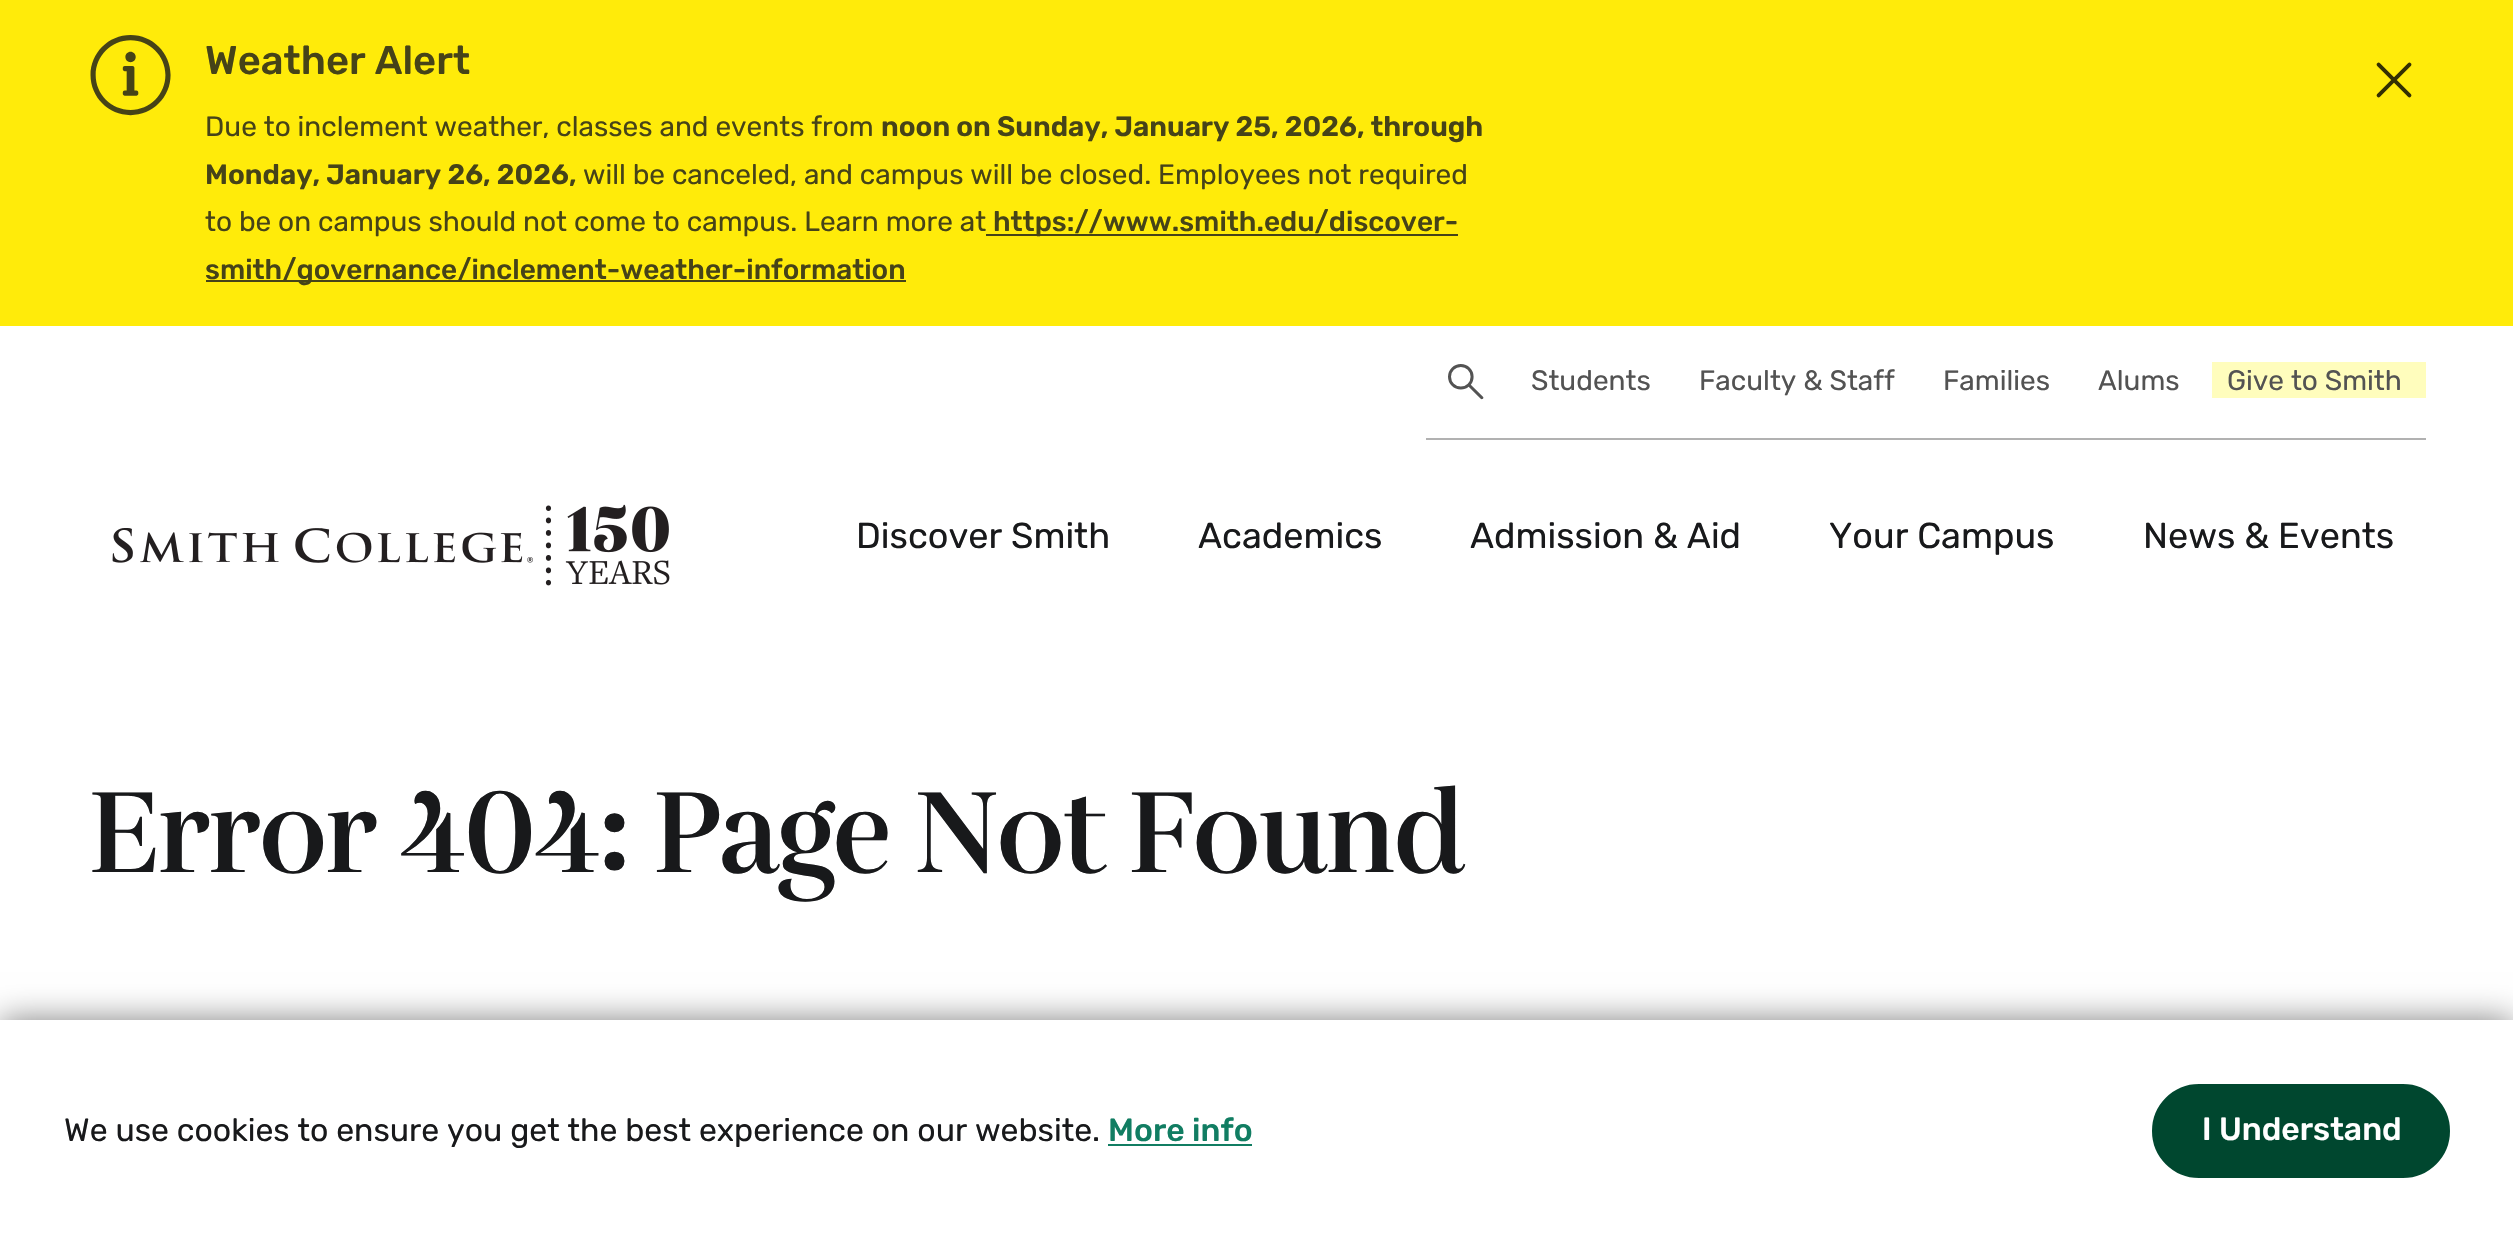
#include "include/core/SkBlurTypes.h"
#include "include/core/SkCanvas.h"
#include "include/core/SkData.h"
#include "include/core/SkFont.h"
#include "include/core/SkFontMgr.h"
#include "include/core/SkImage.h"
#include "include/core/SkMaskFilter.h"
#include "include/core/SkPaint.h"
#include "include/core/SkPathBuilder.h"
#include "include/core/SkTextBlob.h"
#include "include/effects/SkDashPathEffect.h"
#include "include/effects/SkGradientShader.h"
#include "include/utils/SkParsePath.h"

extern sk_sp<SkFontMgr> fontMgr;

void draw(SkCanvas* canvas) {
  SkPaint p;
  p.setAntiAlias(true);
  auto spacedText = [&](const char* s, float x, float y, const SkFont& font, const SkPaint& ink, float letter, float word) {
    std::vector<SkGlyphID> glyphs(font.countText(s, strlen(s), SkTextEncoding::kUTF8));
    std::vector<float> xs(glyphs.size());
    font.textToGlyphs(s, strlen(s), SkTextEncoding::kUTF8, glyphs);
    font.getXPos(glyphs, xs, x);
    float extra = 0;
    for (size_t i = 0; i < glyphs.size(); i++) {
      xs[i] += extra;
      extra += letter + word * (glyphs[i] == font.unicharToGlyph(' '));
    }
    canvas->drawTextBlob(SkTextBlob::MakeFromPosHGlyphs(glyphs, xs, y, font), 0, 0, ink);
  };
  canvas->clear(SK_ColorWHITE);
  p.setColor(SkColorSetRGB(255, 235, 10));
  canvas->drawRect(SkRect::MakeLTRB(0, 0, 2513, 326), p);
  canvas->drawImageRect(SkImages::DeferredFromEncodedData(SkData::MakeFromFileName("images/1.png")), SkRect::MakeLTRB(90, 35, 171, 116), SkSamplingOptions());
  p.setColor(SkColorSetRGB(70, 67, 24));
  canvas->drawRect(SkRect::MakeLTRB(986, 234, 1458, 236), p);
  canvas->drawRect(SkRect::MakeLTRB(206, 280, 906, 282), p);
  canvas->drawImageRect(SkImages::DeferredFromEncodedData(SkData::MakeFromFileName("images/2.png")), SkRect::MakeLTRB(2376, 62, 2412, 98), SkSamplingOptions());
  p.setColor(SkColorSetRGB(177, 177, 177));
  canvas->drawRect(SkRect::MakeLTRB(1426, 438, 2426, 440), p);
  canvas->drawImageRect(SkImages::DeferredFromEncodedData(SkData::MakeFromFileName("images/3.png")), SkRect::MakeLTRB(1448, 364, 1484, 400), SkSamplingOptions());
  p.setColor(SkColorSetRGB(255, 253, 189));
  canvas->drawRect(SkRect::MakeLTRB(2212, 362, 2426, 398), p);
  canvas->drawImageRect(SkImages::DeferredFromEncodedData(SkData::MakeFromFileName("images/4.png")), SkRect::MakeLTRB(112, 504, 670, 586), SkSamplingOptions());
  p.setColor(SkColorSetARGB(128, 0, 0, 0));
  p.setMaskFilter(SkMaskFilter::MakeBlur(kNormal_SkBlurStyle, 16));
  canvas->drawRect(SkRect::MakeLTRB(0, 1020, 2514, 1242), p);
  p.setMaskFilter(nullptr);
  p.setColor(SK_ColorWHITE);
  canvas->drawRect(SkRect::MakeLTRB(0, 1020, 2513, 1241), p);
  p.setColor(SkColorSetRGB(17, 125, 98));
  canvas->drawRect(SkRect::MakeLTRB(1108, 1144, 1252, 1146), p);
  p.setColor(SkColorSetRGB(0, 71, 47));
  canvas->drawRoundRect(SkRect::MakeLTRB(2154, 1086, 2448, 1176), 45, 45, p);
  p.setStyle(SkPaint::kStroke_Style);
  p.setStrokeWidth(4);
  canvas->drawRoundRect(SkRect::MakeLTRB(2154, 1086, 2448, 1176), 45, 45, p);
  SkFont font1(fontMgr->matchFamilyStyle("Rubik", SkFontStyle(500, SkFontStyle::kNormal_Width, SkFontStyle::kUpright_Slant)), 40);
  font1.setSubpixel(true);
  p.setStyle(SkPaint::kFill_Style);
  p.setColor(SkColorSetRGB(70, 67, 24));
  canvas->drawString("Weather Alert", 205, 74, font1, p);
  SkFont font2(fontMgr->matchFamilyStyle("Rubik", SkFontStyle::Normal()), 28);
  font2.setSubpixel(true);
  canvas->drawString("Due to inclement weather, classes and events from", 205, 136, font2, p);
  SkFont font3(fontMgr->matchFamilyStyle("Rubik", SkFontStyle(600, SkFontStyle::kNormal_Width, SkFontStyle::kUpright_Slant)), 28);
  font3.setSubpixel(true);
  canvas->drawString("noon on Sunday, January 25, 2026, through", 881, 136, font3, p);
  canvas->drawString("Monday, January 26, 2026,", 205, 184, font3, p);
  canvas->drawString("will be canceled, and campus will be closed. Employees not required", 583, 184, font2, p);
  canvas->drawString("to be on campus should not come to campus. Learn more at", 205, 231, font2, p);
  SkFont font4(fontMgr->matchFamilyStyle("Rubik", SkFontStyle(500, SkFontStyle::kNormal_Width, SkFontStyle::kUpright_Slant)), 28);
  font4.setSubpixel(true);
  canvas->drawString("https://www.smith.edu/discover-", 993, 231, font4, p);
  canvas->drawString("smith/governance/inclement-weather-information", 205, 279, font4, p);
  p.setColor(SkColorSetRGB(83, 83, 83));
  canvas->drawString("Students", 1531, 390, font2, p);
  canvas->drawString("Faculty & Staff", 1699, 390, font2, p);
  canvas->drawString("Families", 1943, 390, font2, p);
  canvas->drawString("Alums", 2098, 390, font2, p);
  canvas->drawString("Give to Smith", 2227, 390, font2, p);
  SkFont font5(fontMgr->matchFamilyStyle("Rubik", SkFontStyle::Normal()), 36);
  font5.setSubpixel(true);
  p.setColor(SkColorSetRGB(24, 25, 27));
  canvas->drawString("Discover Smith", 856, 548, font5, p);
  canvas->drawString("Academics", 1198, 548, font5, p);
  canvas->drawString("Admission & Aid", 1470, 548, font5, p);
  canvas->drawString("Your Campus", 1829, 548, font5, p);
  canvas->drawString("News & Events", 2143, 548, font5, p);
  SkFont font6(fontMgr->matchFamilyStyle("Gabriela", SkFontStyle(600, SkFontStyle::kNormal_Width, SkFontStyle::kUpright_Slant)), 116.75f);
  font6.setSubpixel(true);
  spacedText("Error 404: Page Not Found", 88, 872, font6, p, -4, 0);
  SkFont font7(fontMgr->matchFamilyStyle("Rubik", SkFontStyle::Normal()), 32);
  font7.setSubpixel(true);
  canvas->drawString("We use cookies to ensure you get the best experience on our website.", 64, 1141, font7, p);
  SkFont font8(fontMgr->matchFamilyStyle("Rubik", SkFontStyle(500, SkFontStyle::kNormal_Width, SkFontStyle::kUpright_Slant)), 32);
  font8.setSubpixel(true);
  p.setColor(SkColorSetRGB(17, 125, 98));
  canvas->drawString("More info", 1108, 1141, font8, p);
  p.setColor(SK_ColorWHITE);
  canvas->drawString("I Understand", 2202, 1140, font8, p);
}
